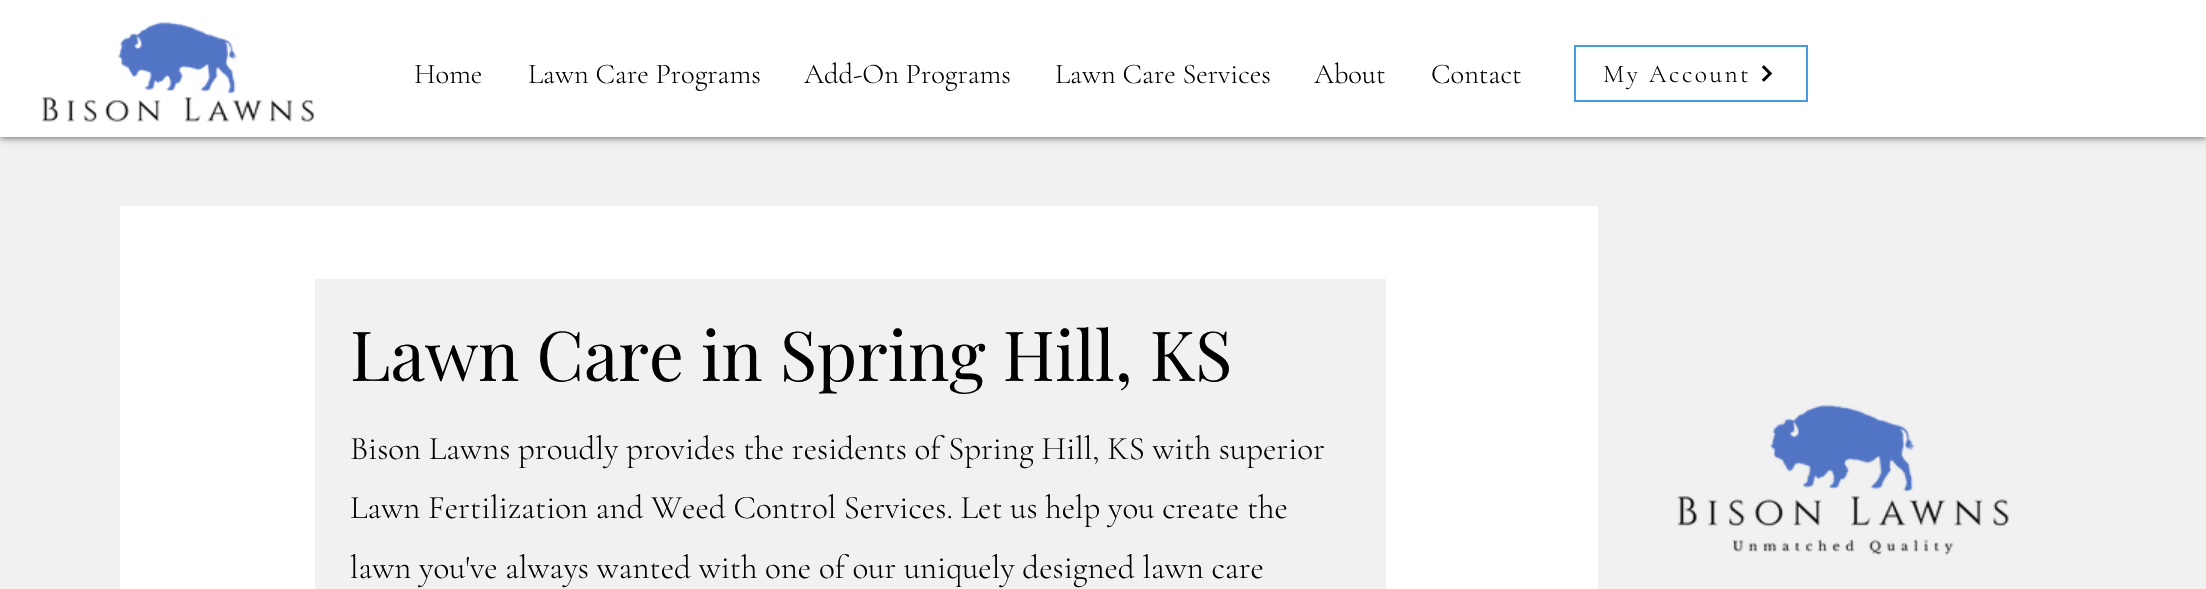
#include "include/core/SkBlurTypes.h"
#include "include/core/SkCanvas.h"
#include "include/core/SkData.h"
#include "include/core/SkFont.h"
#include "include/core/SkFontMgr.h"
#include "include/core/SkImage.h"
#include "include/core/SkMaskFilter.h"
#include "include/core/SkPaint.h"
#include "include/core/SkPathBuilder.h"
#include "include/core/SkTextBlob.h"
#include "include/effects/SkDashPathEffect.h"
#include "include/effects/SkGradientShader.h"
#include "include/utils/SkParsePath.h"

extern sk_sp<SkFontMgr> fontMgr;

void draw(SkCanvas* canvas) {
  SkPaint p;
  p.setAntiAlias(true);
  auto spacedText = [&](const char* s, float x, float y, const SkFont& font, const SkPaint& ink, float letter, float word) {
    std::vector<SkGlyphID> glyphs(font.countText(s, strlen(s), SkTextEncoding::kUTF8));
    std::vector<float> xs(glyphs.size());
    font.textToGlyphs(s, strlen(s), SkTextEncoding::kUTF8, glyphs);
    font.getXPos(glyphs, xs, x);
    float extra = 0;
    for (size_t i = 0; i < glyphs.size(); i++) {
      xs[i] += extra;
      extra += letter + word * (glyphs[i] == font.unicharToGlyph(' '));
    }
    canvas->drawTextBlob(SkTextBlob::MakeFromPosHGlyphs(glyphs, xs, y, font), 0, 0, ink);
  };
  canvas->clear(SkColorSetRGB(241, 241, 241));
  p.setColor(SkColorSetARGB(179, 0, 0, 0));
  p.setMaskFilter(SkMaskFilter::MakeBlur(kNormal_SkBlurStyle, 4));
  canvas->drawRect(SkRect::MakeLTRB(0, 0, 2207, 137), p);
  p.setMaskFilter(nullptr);
  p.setColor(SK_ColorWHITE);
  canvas->drawRect(SkRect::MakeLTRB(0, 0, 2206, 137), p);
  canvas->drawImageRect(SkImages::DeferredFromEncodedData(SkData::MakeFromFileName("images/1.png")), SkRect::MakeLTRB(41, 22, 314, 122), SkSamplingOptions());
  p.setStyle(SkPaint::kStroke_Style);
  p.setStrokeWidth(2);
  p.setColor(SkColorSetRGB(69, 156, 228));
  canvas->drawRect(SkRect::MakeLTRB(1575, 46, 1807, 101), p);
  canvas->drawImageRect(SkImages::DeferredFromEncodedData(SkData::MakeFromFileName("images/2.png")), SkRect::MakeLTRB(1762, 65, 1772, 82), SkSamplingOptions());
  p.setStyle(SkPaint::kFill_Style);
  p.setColor(SK_ColorWHITE);
  canvas->drawRect(SkRect::MakeLTRB(120, 206, 1598, 589), p);
  p.setColor(SkColorSetRGB(241, 241, 241));
  canvas->drawRect(SkRect::MakeLTRB(315, 279, 1386, 589), p);
  canvas->drawImageRect(SkImages::DeferredFromEncodedData(SkData::MakeFromFileName("images/3.png")), SkRect::MakeLTRB(1677, 404, 2009, 556), SkSamplingOptions());
  SkFont font1(fontMgr->matchFamilyStyle("Cormorant Garamond", SkFontStyle(300, SkFontStyle::kNormal_Width, SkFontStyle::kUpright_Slant)), 28.5f);
  font1.setSubpixel(true);
  p.setColor(SK_ColorBLACK);
  canvas->drawString("Home", 414, 83, font1, p);
  canvas->drawString("Lawn Care Programs", 528, 83, font1, p);
  canvas->drawString("Add-On Programs", 804, 83, font1, p);
  canvas->drawString("Lawn Care Services", 1055, 83, font1, p);
  canvas->drawString("About", 1314, 83, font1, p);
  canvas->drawString("Contact", 1431, 83, font1, p);
  SkFont font2(fontMgr->matchFamilyStyle("Cormorant Garamond", SkFontStyle(300, SkFontStyle::kNormal_Width, SkFontStyle::kUpright_Slant)), 25.5f);
  font2.setSubpixel(true);
  spacedText("My Account", 1603, 82, font2, p, 2.5f, 0);
  SkFont font3(fontMgr->matchFamilyStyle("Playfair Display", SkFontStyle::Normal()), 69);
  font3.setSubpixel(true);
  canvas->drawString("Lawn Care in Spring Hill, KS", 350, 381, font3, p);
  SkFont font4(fontMgr->matchFamilyStyle("Cormorant Garamond", SkFontStyle(300, SkFontStyle::kNormal_Width, SkFontStyle::kUpright_Slant)), 33);
  font4.setSubpixel(true);
  canvas->drawString("Bison Lawns proudly provides the residents of Spring Hill, KS with superior", 350, 459, font4, p);
  canvas->drawString("Lawn Fertilization and Weed Control Services. Let us help you create the", 350, 518, font4, p);
  canvas->drawString("lawn you've always wanted with one of our uniquely designed lawn care", 350, 578, font4, p);
}
